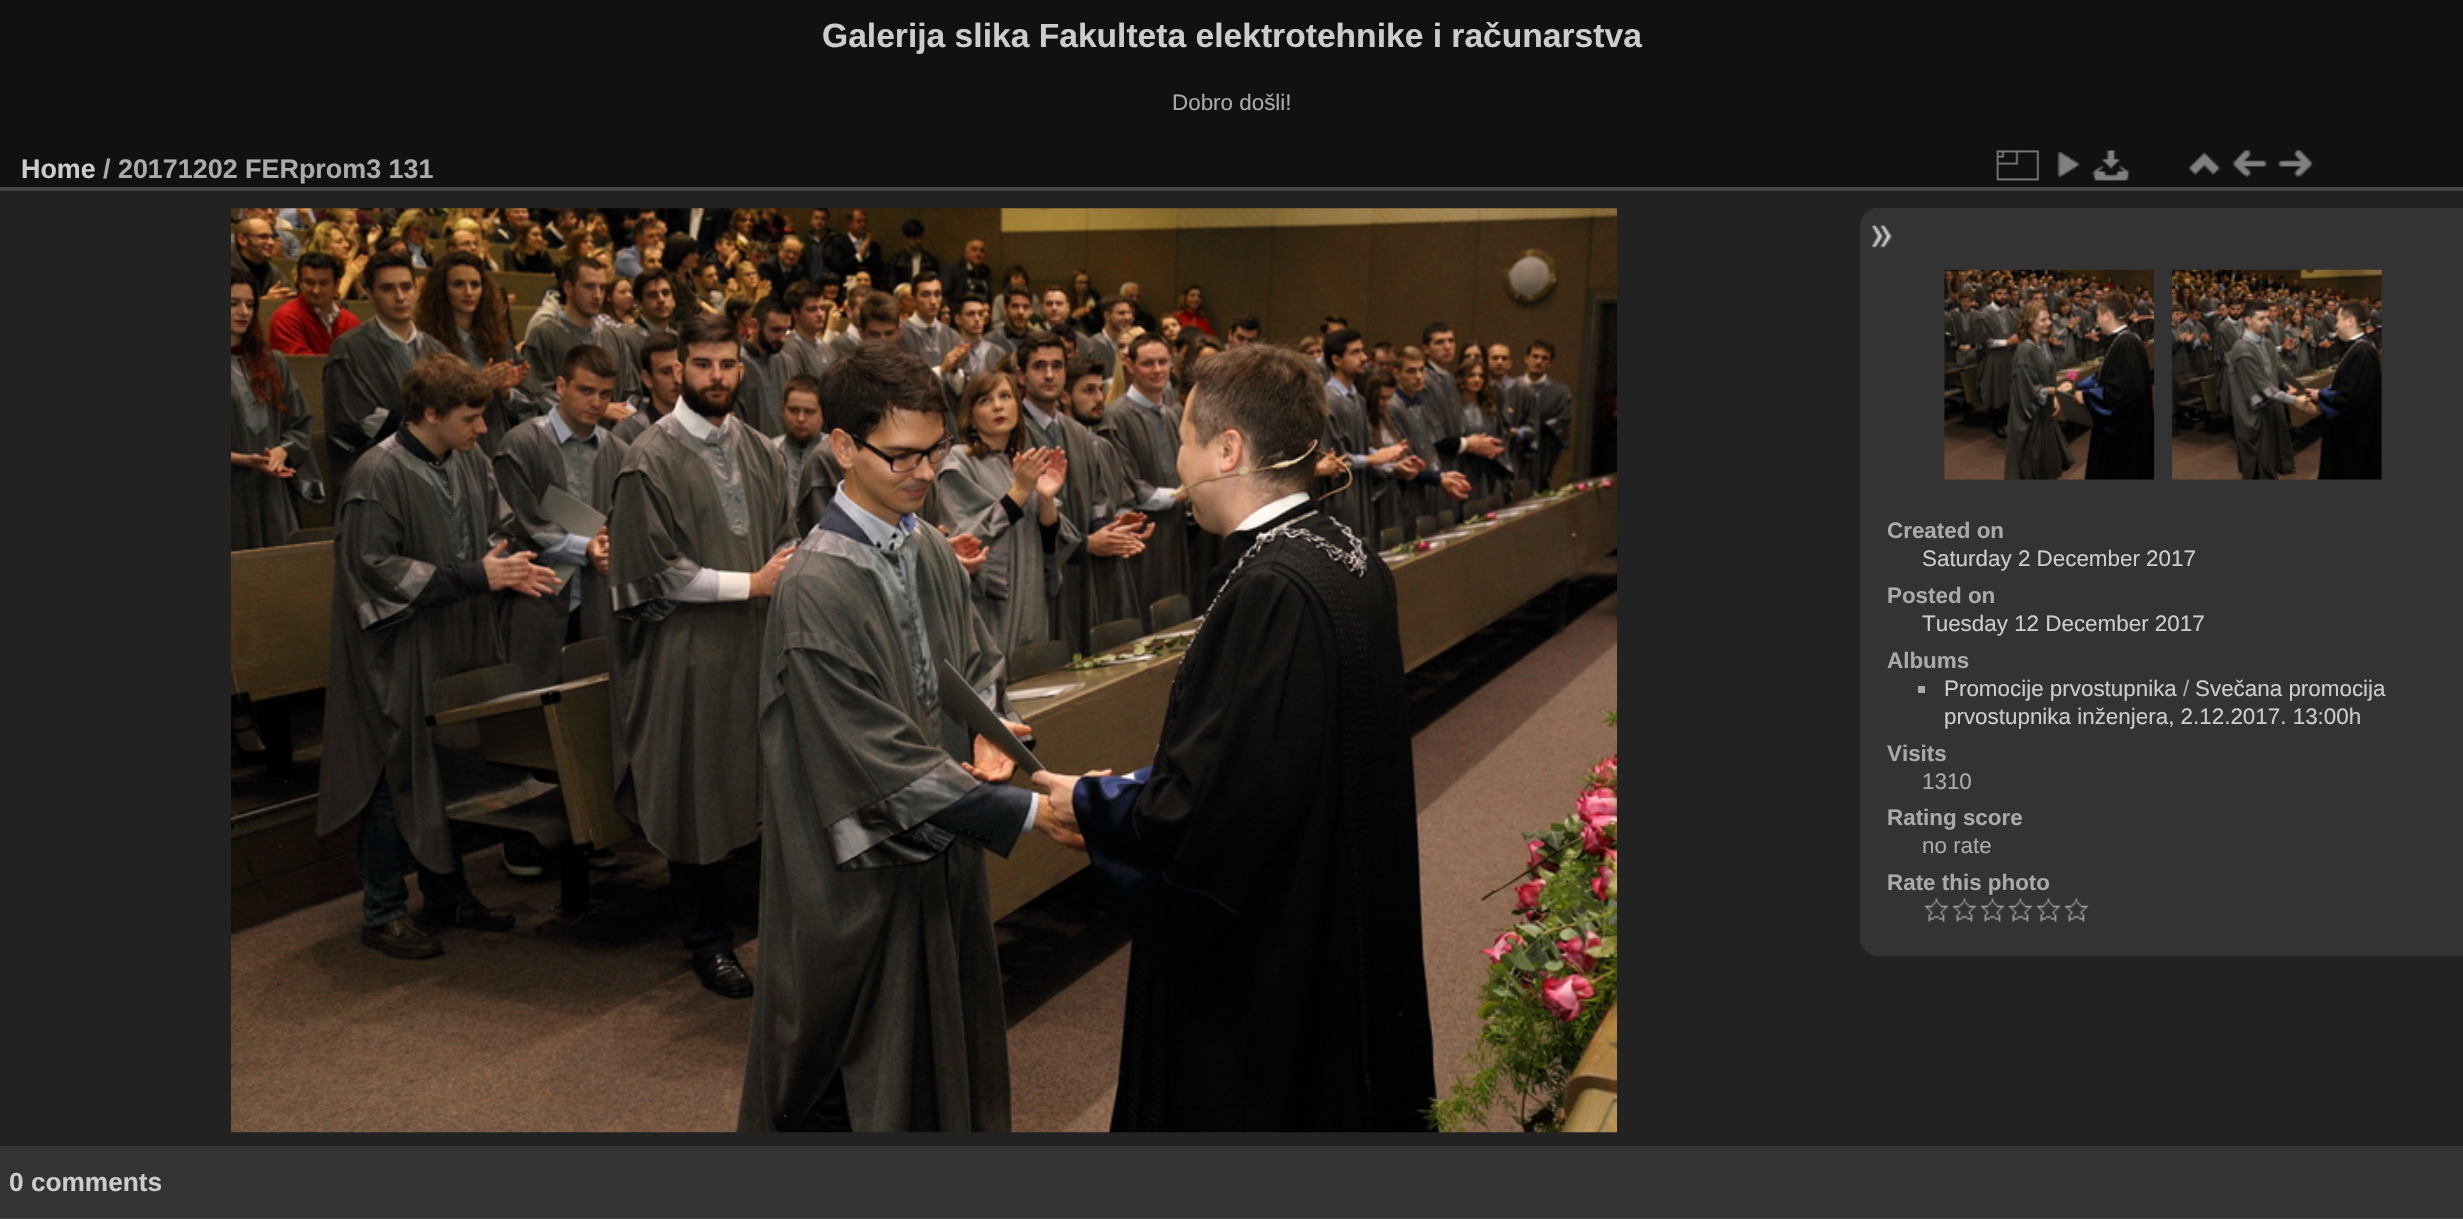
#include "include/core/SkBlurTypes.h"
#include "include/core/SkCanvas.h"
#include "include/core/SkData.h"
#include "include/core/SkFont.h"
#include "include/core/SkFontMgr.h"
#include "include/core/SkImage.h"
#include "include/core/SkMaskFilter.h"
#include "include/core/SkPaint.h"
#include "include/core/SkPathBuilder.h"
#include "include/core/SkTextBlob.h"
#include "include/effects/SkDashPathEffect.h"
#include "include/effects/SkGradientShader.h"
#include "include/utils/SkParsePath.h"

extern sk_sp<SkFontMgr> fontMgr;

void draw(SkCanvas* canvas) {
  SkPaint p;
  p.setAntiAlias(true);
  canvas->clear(SkColorSetRGB(17, 17, 17));
  p.setColor(SkColorSetRGB(34, 34, 34));
  canvas->drawRect(SkRect::MakeLTRB(0, 191, 2463, 1146), p);
  p.setColor(SkColorSetRGB(68, 68, 68));
  canvas->drawRect(SkRect::MakeLTRB(0, 1218, 2463, 1219), p);
  canvas->drawRect(SkRect::MakeLTRB(0, 187, 2463, 191), p);
  canvas->drawImageRect(SkImages::DeferredFromEncodedData(SkData::MakeFromFileName("images/1.png")), SkRect::MakeLTRB(1996, 150, 2039, 181), SkSamplingOptions());
  canvas->drawImageRect(SkImages::DeferredFromEncodedData(SkData::MakeFromFileName("images/2.png")), SkRect::MakeLTRB(2057, 151, 2080, 178), SkSamplingOptions());
  canvas->drawImageRect(SkImages::DeferredFromEncodedData(SkData::MakeFromFileName("images/3.png")), SkRect::MakeLTRB(2092, 150, 2130, 181), SkSamplingOptions());
  canvas->drawImageRect(SkImages::DeferredFromEncodedData(SkData::MakeFromFileName("images/4.png")), SkRect::MakeLTRB(2189, 152, 2220, 176), SkSamplingOptions());
  canvas->drawImageRect(SkImages::DeferredFromEncodedData(SkData::MakeFromFileName("images/5.png")), SkRect::MakeLTRB(2232, 150, 2267, 178), SkSamplingOptions());
  canvas->drawImageRect(SkImages::DeferredFromEncodedData(SkData::MakeFromFileName("images/6.png")), SkRect::MakeLTRB(2278, 150, 2313, 178), SkSamplingOptions());
  canvas->drawImageRect(SkImages::DeferredFromEncodedData(SkData::MakeFromFileName("images/7.png")), SkRect::MakeLTRB(231, 208, 1617, 1133), SkSamplingOptions());
  p.setColor(SkColorSetRGB(51, 51, 51));
  canvas->drawPath(SkPathBuilder().moveTo(1878, 208).lineTo(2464, 208).lineTo(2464, 956).lineTo(1878, 956).cubicTo(1868, 956, 1860, 948, 1860, 938).lineTo(1860, 226).cubicTo(1860, 216, 1868, 208, 1878, 208).close().detach(), p);
  canvas->drawImageRect(SkImages::DeferredFromEncodedData(SkData::MakeFromFileName("images/8.png")), SkRect::MakeLTRB(1871, 225, 1893, 248), SkSamplingOptions());
  canvas->drawImageRect(SkImages::DeferredFromEncodedData(SkData::MakeFromFileName("images/9.png")), SkRect::MakeLTRB(1944, 269, 2155, 480), SkSamplingOptions());
  canvas->drawImageRect(SkImages::DeferredFromEncodedData(SkData::MakeFromFileName("images/10.png")), SkRect::MakeLTRB(2171, 269, 2382, 480), SkSamplingOptions());
  p.setColor(SkColorSetRGB(170, 170, 170));
  canvas->drawRect(SkRect::MakeLTRB(1918, 686, 1925, 693), p);
  canvas->drawImageRect(SkImages::DeferredFromEncodedData(SkData::MakeFromFileName("images/11.png")), SkRect::MakeLTRB(1924, 898, 1949, 922), SkSamplingOptions());
  canvas->drawImageRect(SkImages::DeferredFromEncodedData(SkData::MakeFromFileName("images/12.png")), SkRect::MakeLTRB(1952, 898, 1977, 922), SkSamplingOptions());
  canvas->drawImageRect(SkImages::DeferredFromEncodedData(SkData::MakeFromFileName("images/12.png")), SkRect::MakeLTRB(1980, 898, 2005, 922), SkSamplingOptions());
  canvas->drawImageRect(SkImages::DeferredFromEncodedData(SkData::MakeFromFileName("images/11.png")), SkRect::MakeLTRB(2008, 898, 2033, 922), SkSamplingOptions());
  canvas->drawImageRect(SkImages::DeferredFromEncodedData(SkData::MakeFromFileName("images/11.png")), SkRect::MakeLTRB(2036, 898, 2061, 922), SkSamplingOptions());
  canvas->drawImageRect(SkImages::DeferredFromEncodedData(SkData::MakeFromFileName("images/13.png")), SkRect::MakeLTRB(2064, 898, 2089, 922), SkSamplingOptions());
  p.setColor(SkColorSetRGB(51, 51, 51));
  canvas->drawRect(SkRect::MakeLTRB(0, 1146, 2463, 1218), p);
  SkFont font1(fontMgr->matchFamilyStyle("Liberation Sans", SkFontStyle::Bold()), 33.6f);
  font1.setSubpixel(true);
  p.setColor(SkColorSetRGB(204, 204, 204));
  canvas->drawString("Galerija slika Fakulteta elektrotehnike i računarstva", 822, 47, font1, p);
  SkFont font2(fontMgr->matchFamilyStyle("Liberation Sans", SkFontStyle::Normal()), 22.4f);
  font2.setSubpixel(true);
  p.setColor(SkColorSetRGB(170, 170, 170));
  canvas->drawString("Dobro došli!", 1172, 110, font2, p);
  SkFont font3(fontMgr->matchFamilyStyle("Liberation Sans", SkFontStyle::Bold()), 26.9f);
  font3.setSubpixel(true);
  p.setColor(SkColorSetRGB(204, 204, 204));
  canvas->drawString("Home", 21, 178, font3, p);
  p.setColor(SkColorSetRGB(170, 170, 170));
  canvas->drawString("/ 20171202 FERprom3 131", 103, 178, font3, p);
  SkFont font4(fontMgr->matchFamilyStyle("Liberation Sans", SkFontStyle::Bold()), 22.4f);
  font4.setSubpixel(true);
  canvas->drawString("Created on", 1887, 538, font4, p);
  p.setColor(SkColorSetRGB(204, 204, 204));
  canvas->drawString("Saturday 2 December 2017", 1922, 566, font2, p);
  p.setColor(SkColorSetRGB(170, 170, 170));
  canvas->drawString("Posted on", 1887, 603, font4, p);
  p.setColor(SkColorSetRGB(204, 204, 204));
  canvas->drawString("Tuesday 12 December 2017", 1922, 631, font2, p);
  p.setColor(SkColorSetRGB(170, 170, 170));
  canvas->drawString("Albums", 1887, 668, font4, p);
  p.setColor(SkColorSetRGB(204, 204, 204));
  canvas->drawString("Promocije prvostupnika", 1944, 696, font2, p);
  p.setColor(SkColorSetRGB(170, 170, 170));
  canvas->drawString("/", 2183, 696, font2, p);
  p.setColor(SkColorSetRGB(204, 204, 204));
  canvas->drawString("Svečana promocija", 2195, 696, font2, p);
  canvas->drawString("prvostupnika inženjera, 2.12.2017. 13:00h", 1944, 724, font2, p);
  p.setColor(SkColorSetRGB(170, 170, 170));
  canvas->drawString("Visits", 1887, 761, font4, p);
  canvas->drawString("1310", 1922, 789, font2, p);
  canvas->drawString("Rating score", 1887, 825, font4, p);
  canvas->drawString("no rate", 1922, 853, font2, p);
  canvas->drawString("Rate this photo", 1887, 890, font4, p);
  SkFont font5(fontMgr->matchFamilyStyle("Liberation Sans", SkFontStyle::Bold()), 26.25f);
  font5.setSubpixel(true);
  p.setColor(SkColorSetRGB(204, 204, 204));
  canvas->drawString("0 comments", 9, 1191, font5, p);
}
